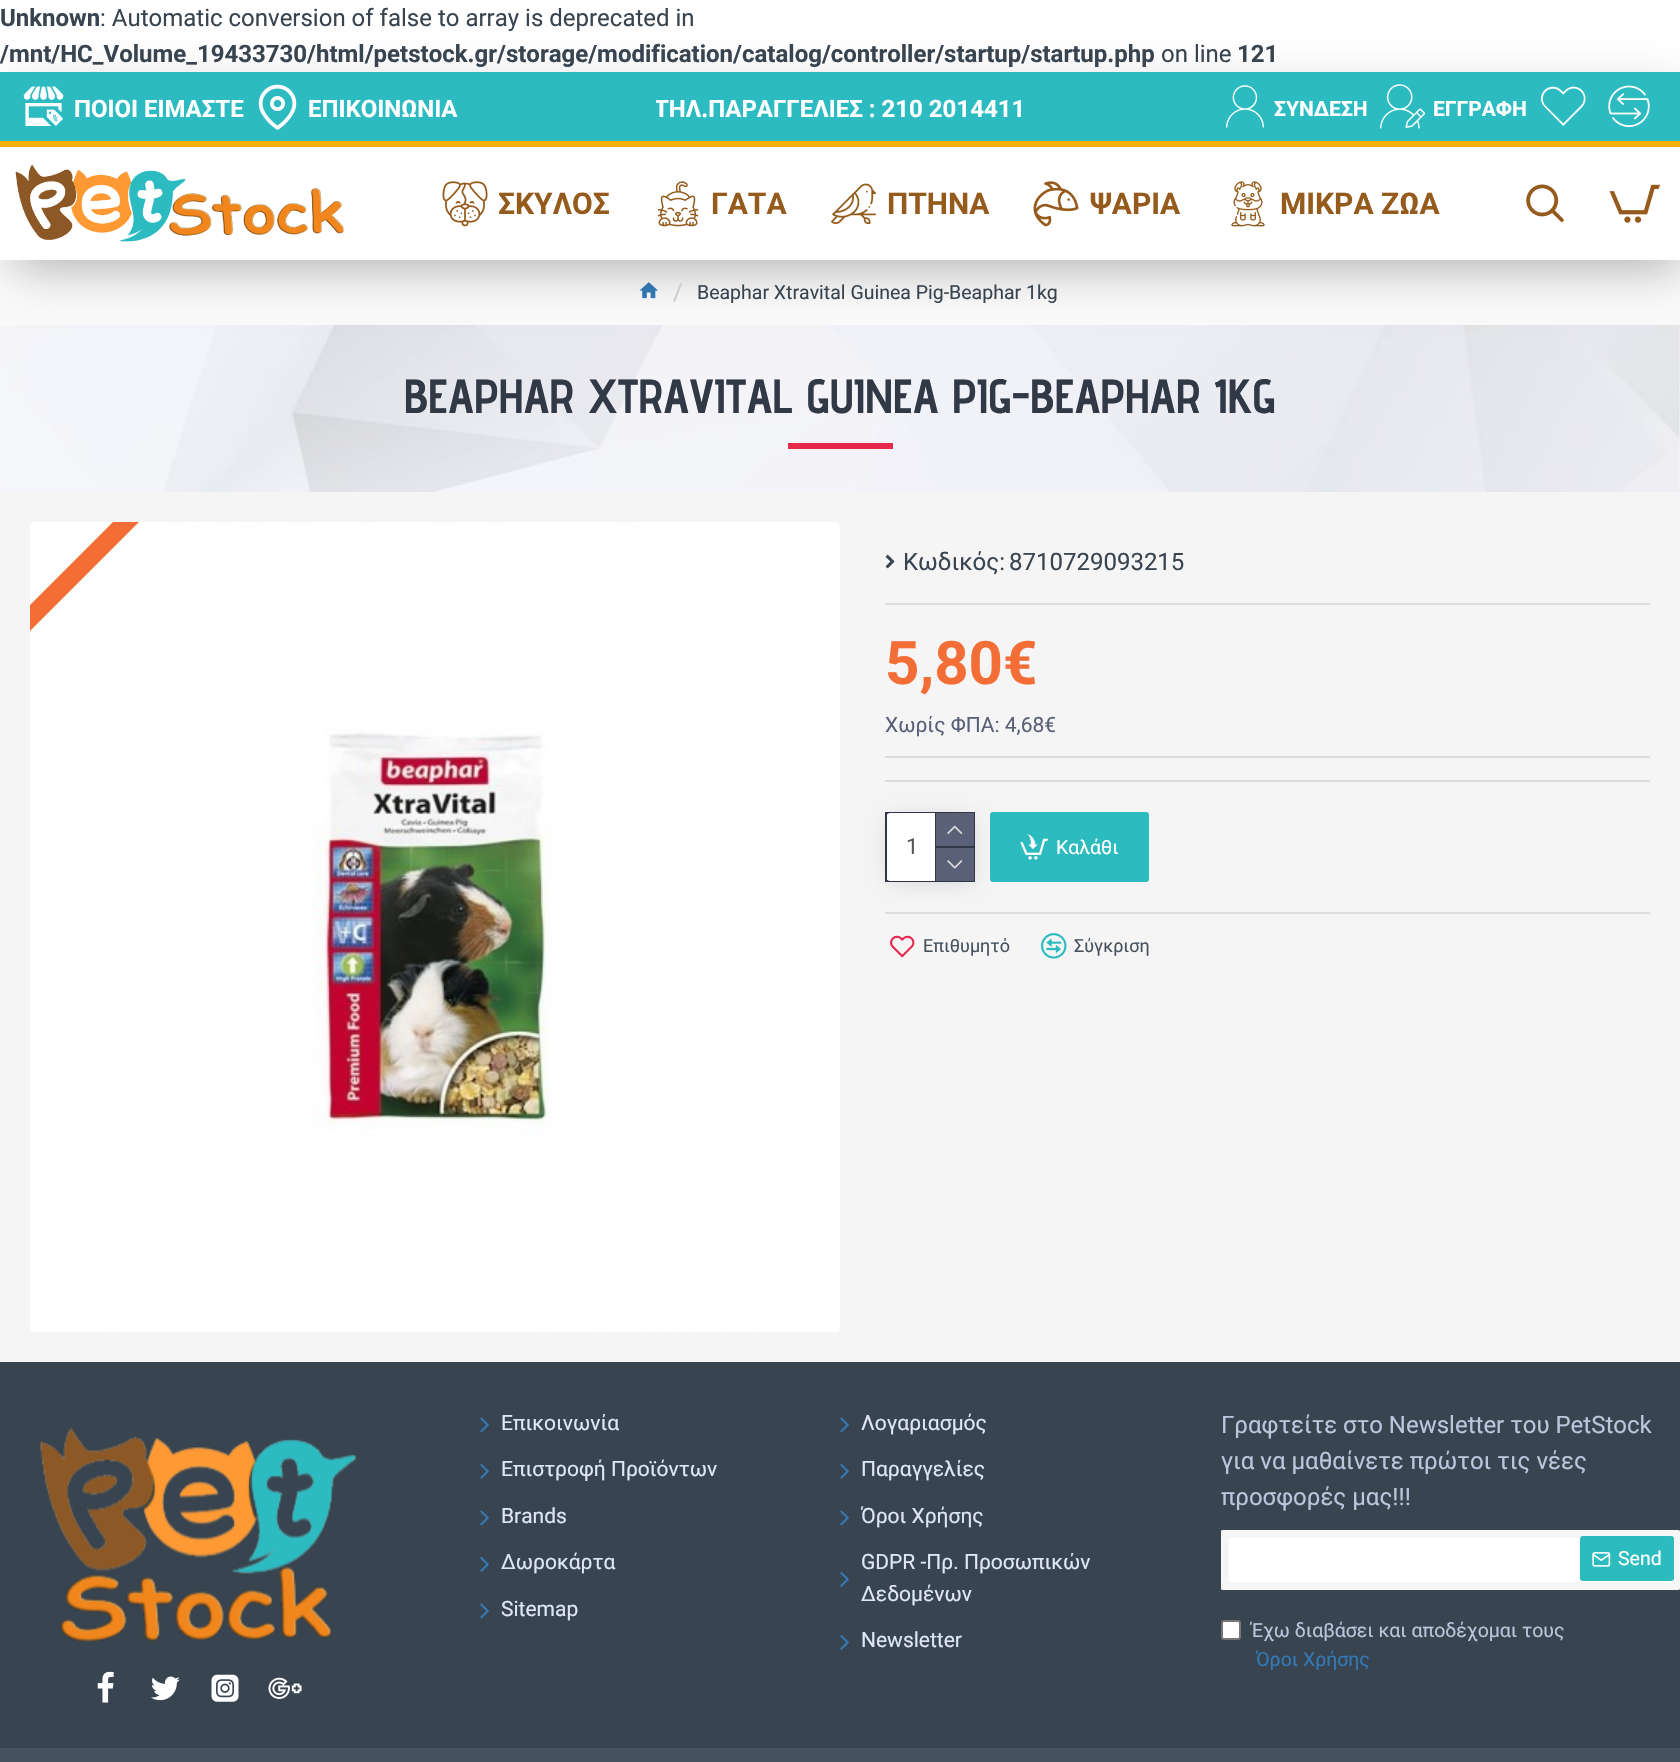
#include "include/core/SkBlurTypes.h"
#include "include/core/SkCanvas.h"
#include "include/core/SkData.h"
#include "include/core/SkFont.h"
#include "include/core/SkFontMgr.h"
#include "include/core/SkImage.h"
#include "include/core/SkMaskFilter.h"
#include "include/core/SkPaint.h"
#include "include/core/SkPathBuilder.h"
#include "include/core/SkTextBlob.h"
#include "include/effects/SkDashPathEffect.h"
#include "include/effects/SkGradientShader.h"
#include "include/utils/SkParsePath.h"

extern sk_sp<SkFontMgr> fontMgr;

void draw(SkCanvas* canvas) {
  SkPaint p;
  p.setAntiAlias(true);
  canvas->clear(SK_ColorWHITE);
  p.setColor(SkColorSetRGB(250, 250, 250));
  canvas->drawRect(SkRect::MakeLTRB(0, 260, 1680, 326), p);
  canvas->drawImageRect(SkImages::DeferredFromEncodedData(SkData::MakeFromFileName("images/15.png")), SkRect::MakeLTRB(639, 282, 658, 299), SkSamplingOptions());
  canvas->drawImageRect(SkImages::DeferredFromEncodedData(SkData::MakeFromFileName("images/16.png")), SkRect::MakeLTRB(0, 325, 1680, 492), SkSamplingOptions());
  p.setColor(SkColorSetARGB(77, 0, 0, 0));
  p.setMaskFilter(SkMaskFilter::MakeBlur(kNormal_SkBlurStyle, 22.5f));
  canvas->drawRect(SkRect::MakeLTRB(15, 95, 1680, 267), p);
  p.setMaskFilter(nullptr);
  p.setColor(SK_ColorWHITE);
  canvas->drawRect(SkRect::MakeLTRB(0, 147, 1680, 260), p);
  p.setColor(SkColorSetRGB(44, 187, 193));
  canvas->drawRect(SkRect::MakeLTRB(0, 72, 1680, 141), p);
  p.setColor(SkColorSetRGB(247, 176, 7));
  canvas->drawRect(SkRect::MakeLTRB(0, 141, 1680, 147), p);
  canvas->drawImageRect(SkImages::DeferredFromEncodedData(SkData::MakeFromFileName("images/1.png")), SkRect::MakeLTRB(23, 86, 64, 126), SkSamplingOptions());
  canvas->drawImageRect(SkImages::DeferredFromEncodedData(SkData::MakeFromFileName("images/2.png")), SkRect::MakeLTRB(258, 84, 297, 130), SkSamplingOptions());
  canvas->drawImageRect(SkImages::DeferredFromEncodedData(SkData::MakeFromFileName("images/3.png")), SkRect::MakeLTRB(1226, 85, 1264, 128), SkSamplingOptions());
  canvas->drawImageRect(SkImages::DeferredFromEncodedData(SkData::MakeFromFileName("images/4.png")), SkRect::MakeLTRB(1380, 84, 1425, 129), SkSamplingOptions());
  canvas->drawImageRect(SkImages::DeferredFromEncodedData(SkData::MakeFromFileName("images/5.png")), SkRect::MakeLTRB(1541, 86, 1586, 126), SkSamplingOptions());
  canvas->drawImageRect(SkImages::DeferredFromEncodedData(SkData::MakeFromFileName("images/6.png")), SkRect::MakeLTRB(1608, 85, 1650, 127), SkSamplingOptions());
  canvas->drawImageRect(SkImages::DeferredFromEncodedData(SkData::MakeFromFileName("images/7.png")), SkRect::MakeLTRB(15, 164, 344, 242), SkSamplingOptions());
  canvas->drawImageRect(SkImages::DeferredFromEncodedData(SkData::MakeFromFileName("images/8.png")), SkRect::MakeLTRB(442, 181, 488, 227), SkSamplingOptions());
  canvas->drawImageRect(SkImages::DeferredFromEncodedData(SkData::MakeFromFileName("images/9.png")), SkRect::MakeLTRB(657, 181, 699, 227), SkSamplingOptions());
  canvas->drawImageRect(SkImages::DeferredFromEncodedData(SkData::MakeFromFileName("images/10.png")), SkRect::MakeLTRB(831, 183, 876, 224), SkSamplingOptions());
  canvas->drawImageRect(SkImages::DeferredFromEncodedData(SkData::MakeFromFileName("images/11.png")), SkRect::MakeLTRB(1033, 181, 1079, 227), SkSamplingOptions());
  canvas->drawImageRect(SkImages::DeferredFromEncodedData(SkData::MakeFromFileName("images/12.png")), SkRect::MakeLTRB(1231, 181, 1265, 227), SkSamplingOptions());
  canvas->drawImageRect(SkImages::DeferredFromEncodedData(SkData::MakeFromFileName("images/13.png")), SkRect::MakeLTRB(1526, 184, 1564, 222), SkSamplingOptions());
  canvas->drawImageRect(SkImages::DeferredFromEncodedData(SkData::MakeFromFileName("images/14.png")), SkRect::MakeLTRB(1609, 184, 1660, 223), SkSamplingOptions());
  p.setColor(SkColorSetRGB(231, 40, 77));
  canvas->drawRect(SkRect::MakeLTRB(788, 443, 893, 449), p);
  p.setColor(SkColorSetRGB(245, 245, 245));
  canvas->drawRect(SkRect::MakeLTRB(0, 492, 1680, 1362), p);
  canvas->drawImageRect(SkImages::DeferredFromEncodedData(SkData::MakeFromFileName("images/17.png")), SkRect::MakeLTRB(30, 522, 840, 1332), SkSamplingOptions());
  p.setColor(SkColorSetRGB(243, 109, 55));
  canvas->drawPath(SkPathBuilder().moveTo(139, 522).lineTo(30, 631).lineTo(30, 605).lineTo(113, 522).close().detach(), p);
  canvas->drawImageRect(SkImages::DeferredFromEncodedData(SkData::MakeFromFileName("images/18.png")), SkRect::MakeLTRB(885, 554, 895, 569), SkSamplingOptions());
  p.setColor(SkColorSetRGB(221, 221, 221));
  canvas->drawRect(SkRect::MakeLTRB(885, 603, 1650, 605), p);
  canvas->drawRect(SkRect::MakeLTRB(885, 756, 1650, 758), p);
  canvas->drawRect(SkRect::MakeLTRB(885, 780, 1650, 782), p);
  p.setStyle(SkPaint::kStroke_Style);
  p.setStrokeWidth(2);
  p.setColor(SkColorSetRGB(49, 56, 70));
  canvas->drawRect(SkRect::MakeLTRB(886, 813, 974, 881), p);
  p.setStyle(SkPaint::kFill_Style);
  p.setColor(SkColorSetRGB(221, 221, 221));
  canvas->drawRect(SkRect::MakeLTRB(885, 912, 1650, 914), p);
  p.setColor(SkColorSetARGB(38, 0, 0, 0));
  p.setMaskFilter(SkMaskFilter::MakeBlur(kNormal_SkBlurStyle, 11));
  canvas->drawRect(SkRect::MakeLTRB(890, 819, 971, 881), p);
  p.setMaskFilter(nullptr);
  p.setColor(SK_ColorWHITE);
  canvas->drawRoundRect(SkRect::MakeLTRB(887, 813, 974, 881), 3, 3, p);
  p.setColor(SkColorSetRGB(49, 56, 70));
  canvas->drawRect(SkRect::MakeLTRB(935, 813, 936, 881), p);
  p.setColor(SkColorSetRGB(89, 96, 119));
  canvas->drawRect(SkRect::MakeLTRB(936, 813, 974, 846), p);
  p.setColor(SkColorSetRGB(49, 56, 70));
  canvas->drawRect(SkRect::MakeLTRB(936, 846, 974, 848), p);
  canvas->drawImageRect(SkImages::DeferredFromEncodedData(SkData::MakeFromFileName("images/19.png")), SkRect::MakeLTRB(947, 825, 963, 834), SkSamplingOptions());
  p.setColor(SkColorSetRGB(89, 96, 119));
  canvas->drawRect(SkRect::MakeLTRB(936, 848, 974, 881), p);
  canvas->drawImageRect(SkImages::DeferredFromEncodedData(SkData::MakeFromFileName("images/20.png")), SkRect::MakeLTRB(947, 860, 963, 869), SkSamplingOptions());
  p.setColor(SkColorSetRGB(44, 187, 191));
  canvas->drawRoundRect(SkRect::MakeLTRB(990, 812, 1149, 882), 3, 3, p);
  canvas->drawImageRect(SkImages::DeferredFromEncodedData(SkData::MakeFromFileName("images/21.png")), SkRect::MakeLTRB(1020, 834, 1048, 860), SkSamplingOptions());
  canvas->drawImageRect(SkImages::DeferredFromEncodedData(SkData::MakeFromFileName("images/22.png")), SkRect::MakeLTRB(890, 935, 915, 958), SkSamplingOptions());
  canvas->drawImageRect(SkImages::DeferredFromEncodedData(SkData::MakeFromFileName("images/23.png")), SkRect::MakeLTRB(1041, 933, 1067, 959), SkSamplingOptions());
  p.setColor(SkColorSetRGB(56, 68, 79));
  canvas->drawRect(SkRect::MakeLTRB(0, 1362, 1680, 1748), p);
  canvas->drawImageRect(SkImages::DeferredFromEncodedData(SkData::MakeFromFileName("images/24.png")), SkRect::MakeLTRB(39, 1428, 357, 1642), SkSamplingOptions());
  canvas->drawImageRect(SkImages::DeferredFromEncodedData(SkData::MakeFromFileName("images/25.png")), SkRect::MakeLTRB(97, 1671, 114, 1703), SkSamplingOptions());
  canvas->drawImageRect(SkImages::DeferredFromEncodedData(SkData::MakeFromFileName("images/26.png")), SkRect::MakeLTRB(151, 1676, 180, 1701), SkSamplingOptions());
  canvas->drawImageRect(SkImages::DeferredFromEncodedData(SkData::MakeFromFileName("images/27.png")), SkRect::MakeLTRB(211, 1674, 239, 1702), SkSamplingOptions());
  canvas->drawImageRect(SkImages::DeferredFromEncodedData(SkData::MakeFromFileName("images/28.png")), SkRect::MakeLTRB(268, 1677, 302, 1699), SkSamplingOptions());
  canvas->drawImageRect(SkImages::DeferredFromEncodedData(SkData::MakeFromFileName("images/29.png")), SkRect::MakeLTRB(480, 1417, 489, 1433), SkSamplingOptions());
  canvas->drawImageRect(SkImages::DeferredFromEncodedData(SkData::MakeFromFileName("images/30.png")), SkRect::MakeLTRB(480, 1463, 489, 1479), SkSamplingOptions());
  canvas->drawImageRect(SkImages::DeferredFromEncodedData(SkData::MakeFromFileName("images/29.png")), SkRect::MakeLTRB(480, 1510, 489, 1526), SkSamplingOptions());
  canvas->drawImageRect(SkImages::DeferredFromEncodedData(SkData::MakeFromFileName("images/30.png")), SkRect::MakeLTRB(480, 1556, 489, 1572), SkSamplingOptions());
  canvas->drawImageRect(SkImages::DeferredFromEncodedData(SkData::MakeFromFileName("images/29.png")), SkRect::MakeLTRB(480, 1603, 489, 1619), SkSamplingOptions());
  canvas->drawImageRect(SkImages::DeferredFromEncodedData(SkData::MakeFromFileName("images/29.png")), SkRect::MakeLTRB(840, 1417, 849, 1433), SkSamplingOptions());
  canvas->drawImageRect(SkImages::DeferredFromEncodedData(SkData::MakeFromFileName("images/30.png")), SkRect::MakeLTRB(840, 1463, 849, 1479), SkSamplingOptions());
  canvas->drawImageRect(SkImages::DeferredFromEncodedData(SkData::MakeFromFileName("images/29.png")), SkRect::MakeLTRB(840, 1510, 849, 1526), SkSamplingOptions());
  canvas->drawImageRect(SkImages::DeferredFromEncodedData(SkData::MakeFromFileName("images/30.png")), SkRect::MakeLTRB(840, 1571, 849, 1587), SkSamplingOptions());
  canvas->drawImageRect(SkImages::DeferredFromEncodedData(SkData::MakeFromFileName("images/30.png")), SkRect::MakeLTRB(840, 1634, 849, 1650), SkSamplingOptions());
  p.setColor(SK_ColorWHITE);
  canvas->drawRoundRect(SkRect::MakeLTRB(1221, 1530, 1680, 1590), 3, 3, p);
  p.setStyle(SkPaint::kStroke_Style);
  p.setStrokeWidth(7.5f);
  p.setColor(SkColorSetRGB(245, 245, 245));
  canvas->drawPath(SkPathBuilder().moveTo(1225, 1534).lineTo(1676, 1534).lineTo(1676, 1586).lineTo(1225, 1586).close().detach(), p);
  p.setStyle(SkPaint::kFill_Style);
  p.setColor(SkColorSetRGB(44, 187, 191));
  canvas->drawRoundRect(SkRect::MakeLTRB(1580, 1536, 1674, 1581), 3, 3, p);
  canvas->drawImageRect(SkImages::DeferredFromEncodedData(SkData::MakeFromFileName("images/31.png")), SkRect::MakeLTRB(1592, 1552, 1611, 1567), SkSamplingOptions());
  p.setColor(SK_ColorWHITE);
  canvas->drawRoundRect(SkRect::MakeLTRB(1222, 1621, 1240, 1639), 2, 2, p);
  p.setStyle(SkPaint::kStroke_Style);
  p.setStrokeWidth(2);
  p.setColor(SkColorSetRGB(118, 118, 118));
  canvas->drawRoundRect(SkRect::MakeLTRB(1222, 1621, 1240, 1639), 2, 2, p);
  p.setStyle(SkPaint::kFill_Style);
  p.setColor(SkColorSetRGB(69, 82, 94));
  canvas->drawRect(SkRect::MakeLTRB(0, 1748, 1680, 1762), p);
  SkFont font1(fontMgr->matchFamilyStyle("Roboto", SkFontStyle::Bold()), 24);
  font1.setSubpixel(true);
  p.setColor(SkColorSetRGB(56, 68, 79));
  canvas->drawString("Unknown", 0, 26, font1, p);
  SkFont font2(fontMgr->matchFamilyStyle("Roboto", SkFontStyle::Normal()), 24);
  font2.setSubpixel(true);
  canvas->drawString(": Automatic conversion of false to array is deprecated in", 100, 26, font2, p);
  canvas->drawString("/mnt/HC_Volume_19433730/html/petstock.gr/storage/modification/catalog/controller/startup/startup.php", 0, 62, font1, p);
  canvas->drawString("on line", 1161, 62, font2, p);
  canvas->drawString("121", 1237, 62, font1, p);
  p.setColor(SK_ColorWHITE);
  canvas->drawString("ΠΟΙΟΙ ΕΙΜΑΣΤΕ", 74, 117, font1, p);
  canvas->drawString("ΕΠΙΚΟΙΝΩΝΙΑ", 308, 117, font1, p);
  canvas->save();
  canvas->clipRect(SkRect::MakeLTRB(656, 92, 1026, 128));
  canvas->drawString("ΤΗΛ.ΠΑΡΑΓΓΕΛΙΕΣ : 210 2014411", 654, 117, font1, p);
  canvas->restore();
  SkFont font3(fontMgr->matchFamilyStyle("Roboto", SkFontStyle::Bold()), 21);
  font3.setSubpixel(true);
  canvas->drawString("ΣΥΝΔΕΣΗ", 1274, 116, font3, p);
  canvas->drawString("ΕΓΓΡΑΦΗ", 1433, 116, font3, p);
  SkFont font4(fontMgr->matchFamilyStyle("Roboto", SkFontStyle::Bold()), 30);
  font4.setSubpixel(true);
  p.setColor(SkColorSetRGB(148, 91, 29));
  canvas->drawString("ΣΚΥΛΟΣ", 498, 214, font4, p);
  canvas->drawString("ΓΑΤΑ", 711, 214, font4, p);
  canvas->drawString("ΠΤΗΝΑ", 887, 214, font4, p);
  canvas->drawString("ΨΑΡΙΑ", 1090, 214, font4, p);
  canvas->drawString("ΜΙΚΡΑ ΖΩΑ", 1280, 214, font4, p);
  p.setColor(SkColorSetRGB(204, 204, 204));
  canvas->drawString("/", 673, 300, font2, p);
  SkFont font5(fontMgr->matchFamilyStyle("Roboto", SkFontStyle::Normal()), 19.5f);
  font5.setSubpixel(true);
  p.setColor(SkColorSetRGB(56, 68, 79));
  canvas->drawString("Beaphar Xtravital Guinea Pig-Beaphar 1kg", 697, 299, font5, p);
  SkFont font6(fontMgr->matchFamilyStyle("Advent Pro", SkFontStyle::Bold()), 48);
  font6.setSubpixel(true);
  p.setColor(SkColorSetRGB(49, 56, 70));
  canvas->drawString("BEAPHAR XTRAVITAL GUINEA PIG-BEAPHAR 1KG", 404, 413, font6, p);
  p.setColor(SkColorSetRGB(56, 68, 79));
  canvas->drawString("Κωδικός:", 903, 570, font2, p);
  canvas->drawString("8710729093215", 1009, 570, font2, p);
  SkFont font7(fontMgr->matchFamilyStyle("Roboto", SkFontStyle::Bold()), 60);
  font7.setSubpixel(true);
  p.setColor(SkColorSetRGB(243, 109, 55));
  canvas->drawString("5,80€", 885, 684, font7, p);
  SkFont font8(fontMgr->matchFamilyStyle("Roboto", SkFontStyle::Normal()), 21);
  font8.setSubpixel(true);
  p.setColor(SkColorSetRGB(89, 96, 119));
  canvas->drawString("Χωρίς ΦΠΑ: 4,68€", 885, 732, font8, p);
  SkFont font9(fontMgr->matchFamilyStyle("Roboto", SkFontStyle::Normal()), 22);
  font9.setSubpixel(true);
  p.setColor(SkColorSetRGB(85, 85, 85));
  canvas->drawString("1", 906, 854, font9, p);
  p.setColor(SK_ColorWHITE);
  canvas->drawString("Καλάθι", 1056, 854, font5, p);
  SkFont font10(fontMgr->matchFamilyStyle("Roboto", SkFontStyle::Normal()), 18);
  font10.setSubpixel(true);
  p.setColor(SkColorSetRGB(69, 82, 94));
  canvas->drawString("Επιθυμητό", 923, 952, font10, p);
  canvas->drawString("Σύγκριση", 1074, 952, font10, p);
  p.setColor(SkColorSetRGB(223, 231, 247));
  canvas->drawString("Επικοινωνία", 501, 1430, font8, p);
  canvas->drawString("Επιστροφή Προϊόντων", 501, 1476, font8, p);
  canvas->drawString("Brands", 501, 1523, font8, p);
  canvas->drawString("Δωροκάρτα", 501, 1569, font8, p);
  canvas->drawString("Sitemap", 501, 1616, font8, p);
  canvas->drawString("Λογαριασμός", 861, 1430, font8, p);
  canvas->drawString("Παραγγελίες", 861, 1476, font8, p);
  canvas->drawString("Όροι Χρήσης", 861, 1523, font8, p);
  canvas->drawString("GDPR -Πρ. Προσωπικών", 861, 1569, font8, p);
  canvas->drawString("Δεδομένων", 861, 1601, font8, p);
  canvas->drawString("Newsletter", 861, 1647, font8, p);
  p.setColor(SkColorSetRGB(187, 198, 221));
  canvas->drawString("Γραφτείτε στο Newsletter του PetStock", 1221, 1433, font2, p);
  canvas->drawString("για να μαθαίνετε πρώτοι τις νέες", 1221, 1469, font2, p);
  canvas->drawString("προσφορές μας!!!", 1221, 1505, font2, p);
  p.setColor(SK_ColorWHITE);
  canvas->drawString("Send", 1618, 1565, font5, p);
  p.setColor(SkColorSetRGB(187, 198, 221));
  canvas->drawString("Έχω διαβάσει και αποδέχομαι τους", 1251, 1637, font5, p);
  p.setColor(SkColorSetRGB(51, 122, 183));
  canvas->drawString("Όροι Χρήσης", 1256, 1666, font5, p);
}
